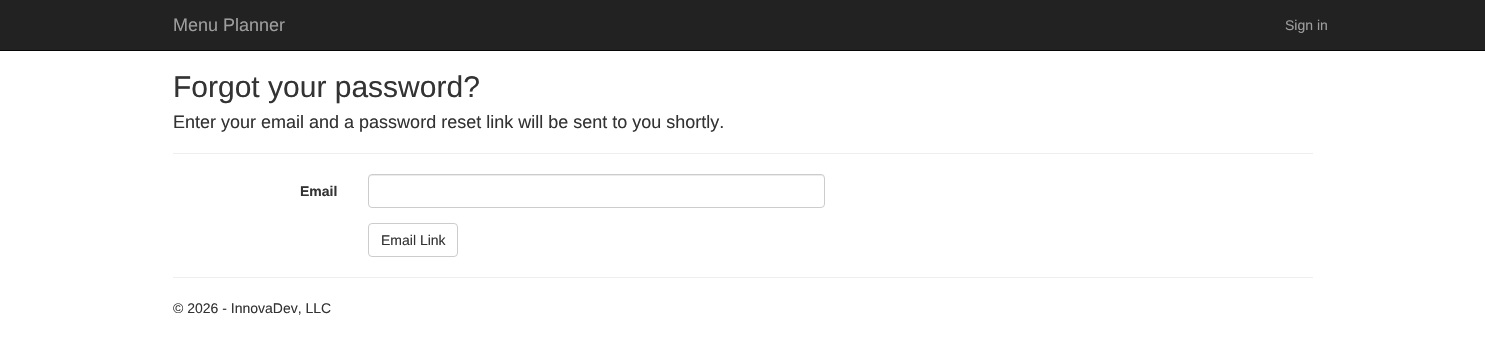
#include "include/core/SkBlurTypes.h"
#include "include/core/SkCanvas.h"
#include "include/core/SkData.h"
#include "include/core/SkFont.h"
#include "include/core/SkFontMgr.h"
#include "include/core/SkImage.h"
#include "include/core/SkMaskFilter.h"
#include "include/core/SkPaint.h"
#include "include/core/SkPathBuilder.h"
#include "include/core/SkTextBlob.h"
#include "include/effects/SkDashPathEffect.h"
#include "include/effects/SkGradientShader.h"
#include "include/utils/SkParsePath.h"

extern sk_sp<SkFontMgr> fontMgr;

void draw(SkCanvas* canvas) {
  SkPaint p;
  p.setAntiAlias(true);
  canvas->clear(SK_ColorWHITE);
  p.setColor(SkColorSetRGB(34, 34, 34));
  canvas->drawRect(SkRect::MakeLTRB(0, 0, 1485, 50), p);
  p.setColor(SkColorSetRGB(8, 8, 8));
  canvas->drawRect(SkRect::MakeLTRB(0, 50, 1485, 51), p);
  p.setColor(SkColorSetRGB(238, 238, 238));
  canvas->drawRect(SkRect::MakeLTRB(173, 153, 1313, 154), p);
  p.setColor(SkColorSetRGB(236, 236, 236));
  canvas->drawPath(SkPathBuilder().moveTo(372, 176).lineTo(821, 176).cubicTo(823, 176, 824, 177, 824, 179).lineTo(824, 177).lineTo(822, 175).lineTo(371, 175).cubicTo(369, 176, 369, 177, 369, 179).cubicTo(369, 177, 370, 176, 372, 176).close().detach(), p);
  p.setStyle(SkPaint::kStroke_Style);
  p.setStrokeWidth(1);
  p.setColor(SkColorSetRGB(204, 204, 204));
  canvas->drawRoundRect(SkRect::MakeLTRB(368.5f, 174.5f, 824.5f, 207.5f), 3.5f, 3.5f, p);
  canvas->drawRoundRect(SkRect::MakeLTRB(368.5f, 223.5f, 457.5f, 256.5f), 3.5f, 3.5f, p);
  p.setStyle(SkPaint::kFill_Style);
  p.setColor(SkColorSetRGB(238, 238, 238));
  canvas->drawRect(SkRect::MakeLTRB(173, 277, 1313, 278), p);
  SkFont font1(fontMgr->matchFamilyStyle("Liberation Sans", SkFontStyle::Normal()), 18);
  font1.setSubpixel(true);
  p.setColor(SkColorSetRGB(157, 157, 157));
  canvas->drawString("Menu Planner", 173, 31, font1, p);
  SkFont font2(fontMgr->matchFamilyStyle("Liberation Sans", SkFontStyle::Normal()), 14);
  font2.setSubpixel(true);
  canvas->drawString("Sign in", 1285, 30, font2, p);
  SkFont font3(fontMgr->matchFamilyStyle("Liberation Sans", SkFontStyle::Normal()), 30);
  font3.setSubpixel(true);
  p.setColor(SkColorSetRGB(51, 51, 51));
  canvas->drawString("Forgot your password?", 173, 97, font3, p);
  canvas->drawString("Enter your email and a password reset link will be sent to you shortly.", 173, 128, font1, p);
  SkFont font4(fontMgr->matchFamilyStyle("Liberation Sans", SkFontStyle::Bold()), 14);
  font4.setSubpixel(true);
  canvas->drawString("Email", 300, 196, font4, p);
  canvas->drawString("Email Link", 381, 245, font2, p);
  canvas->drawString("© 2026 - InnovaDev, LLC", 173, 313, font2, p);
}
